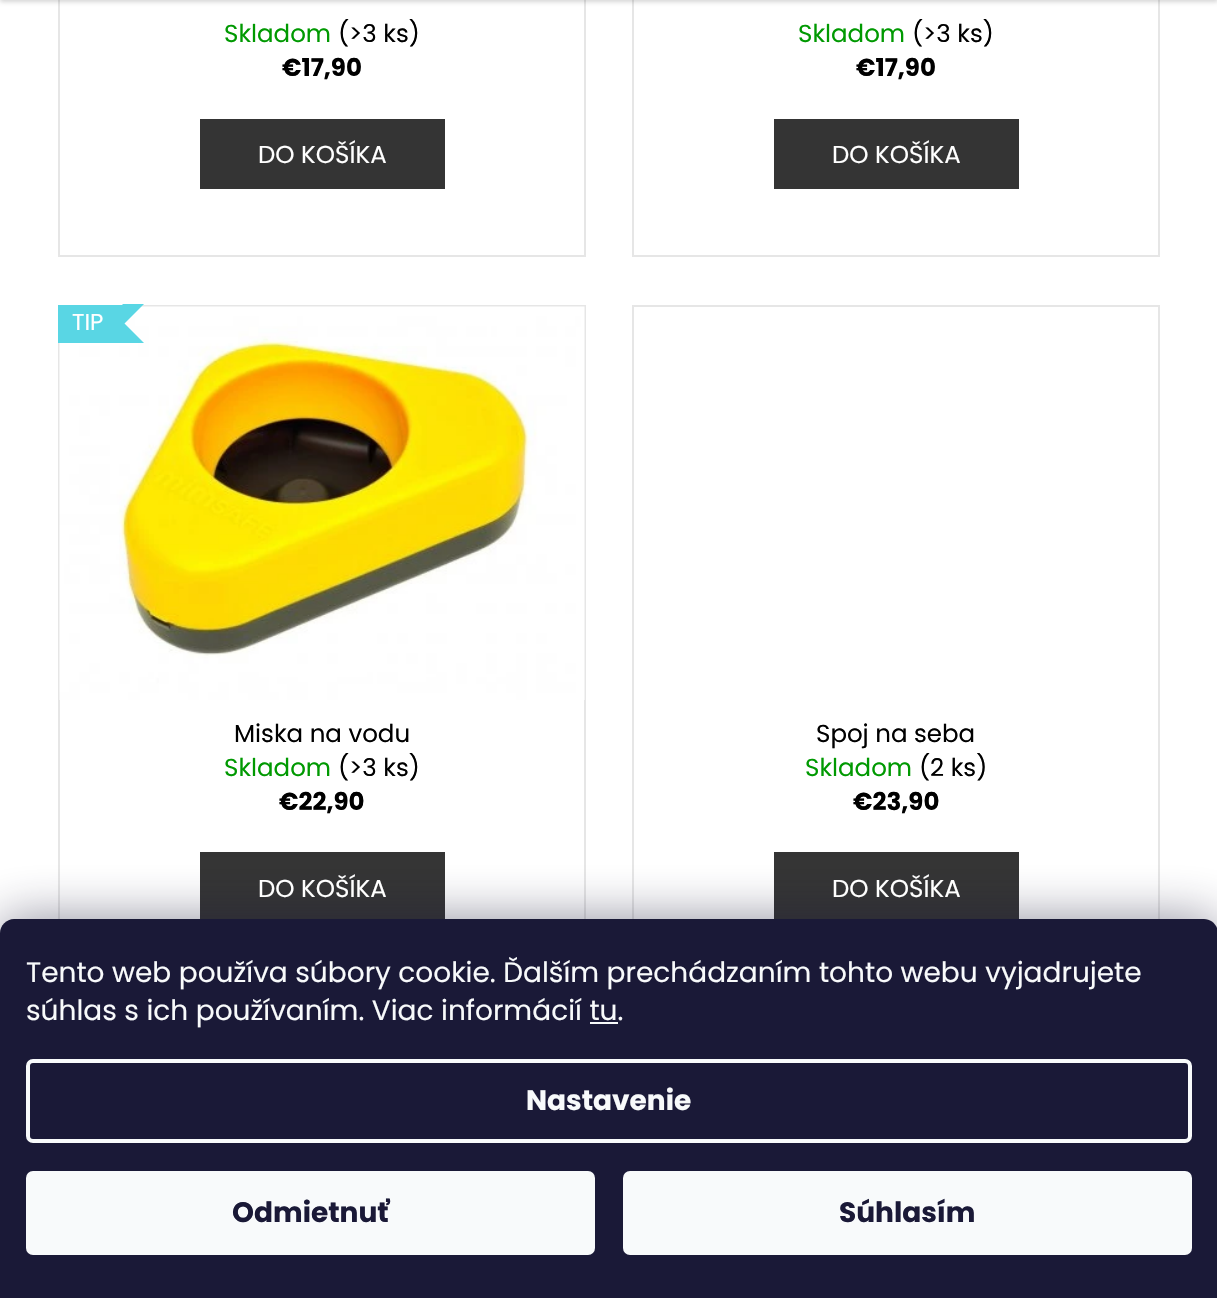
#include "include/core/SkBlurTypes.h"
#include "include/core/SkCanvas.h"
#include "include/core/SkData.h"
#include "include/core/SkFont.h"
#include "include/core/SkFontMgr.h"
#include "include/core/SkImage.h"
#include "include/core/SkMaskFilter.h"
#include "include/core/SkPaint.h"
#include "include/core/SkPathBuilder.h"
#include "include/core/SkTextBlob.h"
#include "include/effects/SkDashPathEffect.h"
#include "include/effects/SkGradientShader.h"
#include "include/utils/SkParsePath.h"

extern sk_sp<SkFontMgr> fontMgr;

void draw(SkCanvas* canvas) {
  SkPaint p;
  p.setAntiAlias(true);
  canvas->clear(SK_ColorWHITE);
  p.setStyle(SkPaint::kStroke_Style);
  p.setStrokeWidth(2);
  p.setColor(SkColorSetRGB(230, 230, 230));
  canvas->drawRect(SkRect::MakeLTRB(59, -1, 585, 256), p);
  canvas->drawRect(SkRect::MakeLTRB(633, -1, 1159, 256), p);
  p.setStyle(SkPaint::kFill_Style);
  p.setColor(SkColorSetARGB(41, 0, 0, 0));
  p.setMaskFilter(SkMaskFilter::MakeBlur(kNormal_SkBlurStyle, 2));
  canvas->drawRect(SkRect::MakeLTRB(0, -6, 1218, 2), p);
  p.setMaskFilter(nullptr);
  p.setColor(SkColorSetRGB(52, 52, 52));
  canvas->drawRect(SkRect::MakeLTRB(200, 119, 445, 189), p);
  canvas->drawRect(SkRect::MakeLTRB(774, 119, 1019, 189), p);
  p.setStyle(SkPaint::kStroke_Style);
  p.setColor(SkColorSetRGB(230, 230, 230));
  canvas->drawRect(SkRect::MakeLTRB(59, 306, 585, 956), p);
  canvas->drawImageRect(SkImages::DeferredFromEncodedData(SkData::MakeFromFileName("images/1.png")), SkRect::MakeLTRB(59, 306, 585, 700), SkSamplingOptions());
  p.setStyle(SkPaint::kFill_Style);
  p.setColor(SkColorSetRGB(89, 214, 228));
  canvas->drawRect(SkRect::MakeLTRB(58, 305, 123, 343), p);
  p.setColor(SkColorSetRGB(52, 52, 52));
  canvas->drawRect(SkRect::MakeLTRB(200, 852, 445, 919), p);
  p.setStyle(SkPaint::kStroke_Style);
  p.setColor(SkColorSetRGB(230, 230, 230));
  canvas->drawRect(SkRect::MakeLTRB(633, 306, 1159, 956), p);
  p.setStyle(SkPaint::kFill_Style);
  p.setColor(SkColorSetRGB(52, 52, 52));
  canvas->drawRect(SkRect::MakeLTRB(774, 852, 1019, 919), p);
  p.setColor(SkColorSetARGB(128, 27, 25, 57));
  p.setMaskFilter(SkMaskFilter::MakeBlur(kNormal_SkBlurStyle, 26));
  canvas->drawRoundRect(SkRect::MakeLTRB(0, 919, 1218, 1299), 14, 14, p);
  p.setMaskFilter(nullptr);
  p.setColor(SkColorSetRGB(26, 25, 55));
  canvas->drawPath(SkPathBuilder().moveTo(14, 919).lineTo(1204, 919).cubicTo(1211.5f, 919, 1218, 925.5f, 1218, 933).lineTo(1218, 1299).lineTo(0, 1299).lineTo(0, 933).cubicTo(0, 925.5f, 6.5f, 919, 14, 919).close().detach(), p);
  p.setColor(SkColorSetRGB(248, 250, 251));
  canvas->drawRect(SkRect::MakeLTRB(590, 1022, 618, 1024), p);
  p.setStyle(SkPaint::kStroke_Style);
  p.setStrokeWidth(4);
  canvas->drawRoundRect(SkRect::MakeLTRB(28, 1061, 1190, 1141), 5, 5, p);
  p.setStyle(SkPaint::kFill_Style);
  canvas->drawRoundRect(SkRect::MakeLTRB(26, 1171, 595, 1255), 7, 7, p);
  canvas->drawRoundRect(SkRect::MakeLTRB(623, 1171, 1192, 1255), 7, 7, p);
  SkFont font1(fontMgr->matchFamilyStyle("Poppins", SkFontStyle::Normal()), 24.5f);
  font1.setSubpixel(true);
  p.setColor(SkColorSetRGB(0, 153, 1));
  canvas->drawString("Skladom", 224, 42, font1, p);
  p.setColor(SK_ColorBLACK);
  canvas->drawString("(>3 ks)", 338, 42, font1, p);
  SkFont font2(fontMgr->matchFamilyStyle("Poppins", SkFontStyle::Bold()), 24.5f);
  font2.setSubpixel(true);
  canvas->drawString("€17,90", 282, 76, font2, p);
  p.setColor(SK_ColorWHITE);
  canvas->drawString("DO KOŠÍKA", 258, 163, font1, p);
  p.setColor(SkColorSetRGB(0, 153, 1));
  canvas->drawString("Skladom", 798, 42, font1, p);
  p.setColor(SK_ColorBLACK);
  canvas->drawString("(>3 ks)", 912, 42, font1, p);
  canvas->drawString("€17,90", 856, 76, font2, p);
  p.setColor(SK_ColorWHITE);
  canvas->drawString("DO KOŠÍKA", 832, 163, font1, p);
  SkFont font3(fontMgr->matchFamilyStyle("Poppins", SkFontStyle::Normal()), 23);
  font3.setSubpixel(true);
  canvas->drawString("TIP", 72, 330, font3, p);
  p.setColor(SkColorSetRGB(89, 214, 228));
  canvas->drawPath(SkPathBuilder().moveTo(102, 322).lineTo(123, 322).lineTo(144, 343).lineTo(123, 343).close().detach(), p);
  canvas->drawPath(SkPathBuilder().moveTo(123, 304).lineTo(144, 304).lineTo(123, 325).lineTo(102, 325).close().detach(), p);
  p.setColor(SK_ColorBLACK);
  canvas->drawString("Miska na vodu", 234, 742, font1, p);
  p.setColor(SkColorSetRGB(0, 153, 1));
  canvas->drawString("Skladom", 224, 776, font1, p);
  p.setColor(SK_ColorBLACK);
  canvas->drawString("(>3 ks)", 338, 776, font1, p);
  canvas->drawString("€22,90", 279, 810, font2, p);
  p.setColor(SK_ColorWHITE);
  canvas->drawString("DO KOŠÍKA", 258, 897, font1, p);
  p.setColor(SK_ColorBLACK);
  canvas->drawString("Spoj na seba", 816, 742, font1, p);
  p.setColor(SkColorSetRGB(0, 153, 1));
  canvas->drawString("Skladom", 805, 776, font1, p);
  p.setColor(SK_ColorBLACK);
  canvas->drawString("(2 ks)", 919, 776, font1, p);
  canvas->drawString("€23,90", 853, 810, font2, p);
  p.setColor(SK_ColorWHITE);
  canvas->drawString("DO KOŠÍKA", 832, 897, font1, p);
  SkFont font4(fontMgr->matchFamilyStyle("Poppins", SkFontStyle::Normal()), 28);
  font4.setSubpixel(true);
  p.setColor(SkColorSetRGB(248, 250, 251));
  canvas->drawString("Tento web používa súbory cookie. Ďalším prechádzaním tohto webu vyjadrujete", 26, 982, font4, p);
  canvas->drawString("súhlas s ich používaním. Viac informácií tu.", 26, 1020, font4, p);
  SkFont font5(fontMgr->matchFamilyStyle("Poppins", SkFontStyle::Bold()), 28);
  font5.setSubpixel(true);
  canvas->drawString("Nastavenie", 526, 1110, font5, p);
  p.setColor(SkColorSetRGB(26, 25, 55));
  canvas->drawString("Odmietnuť", 232, 1222, font5, p);
  canvas->drawString("Súhlasím", 839, 1222, font5, p);
}
